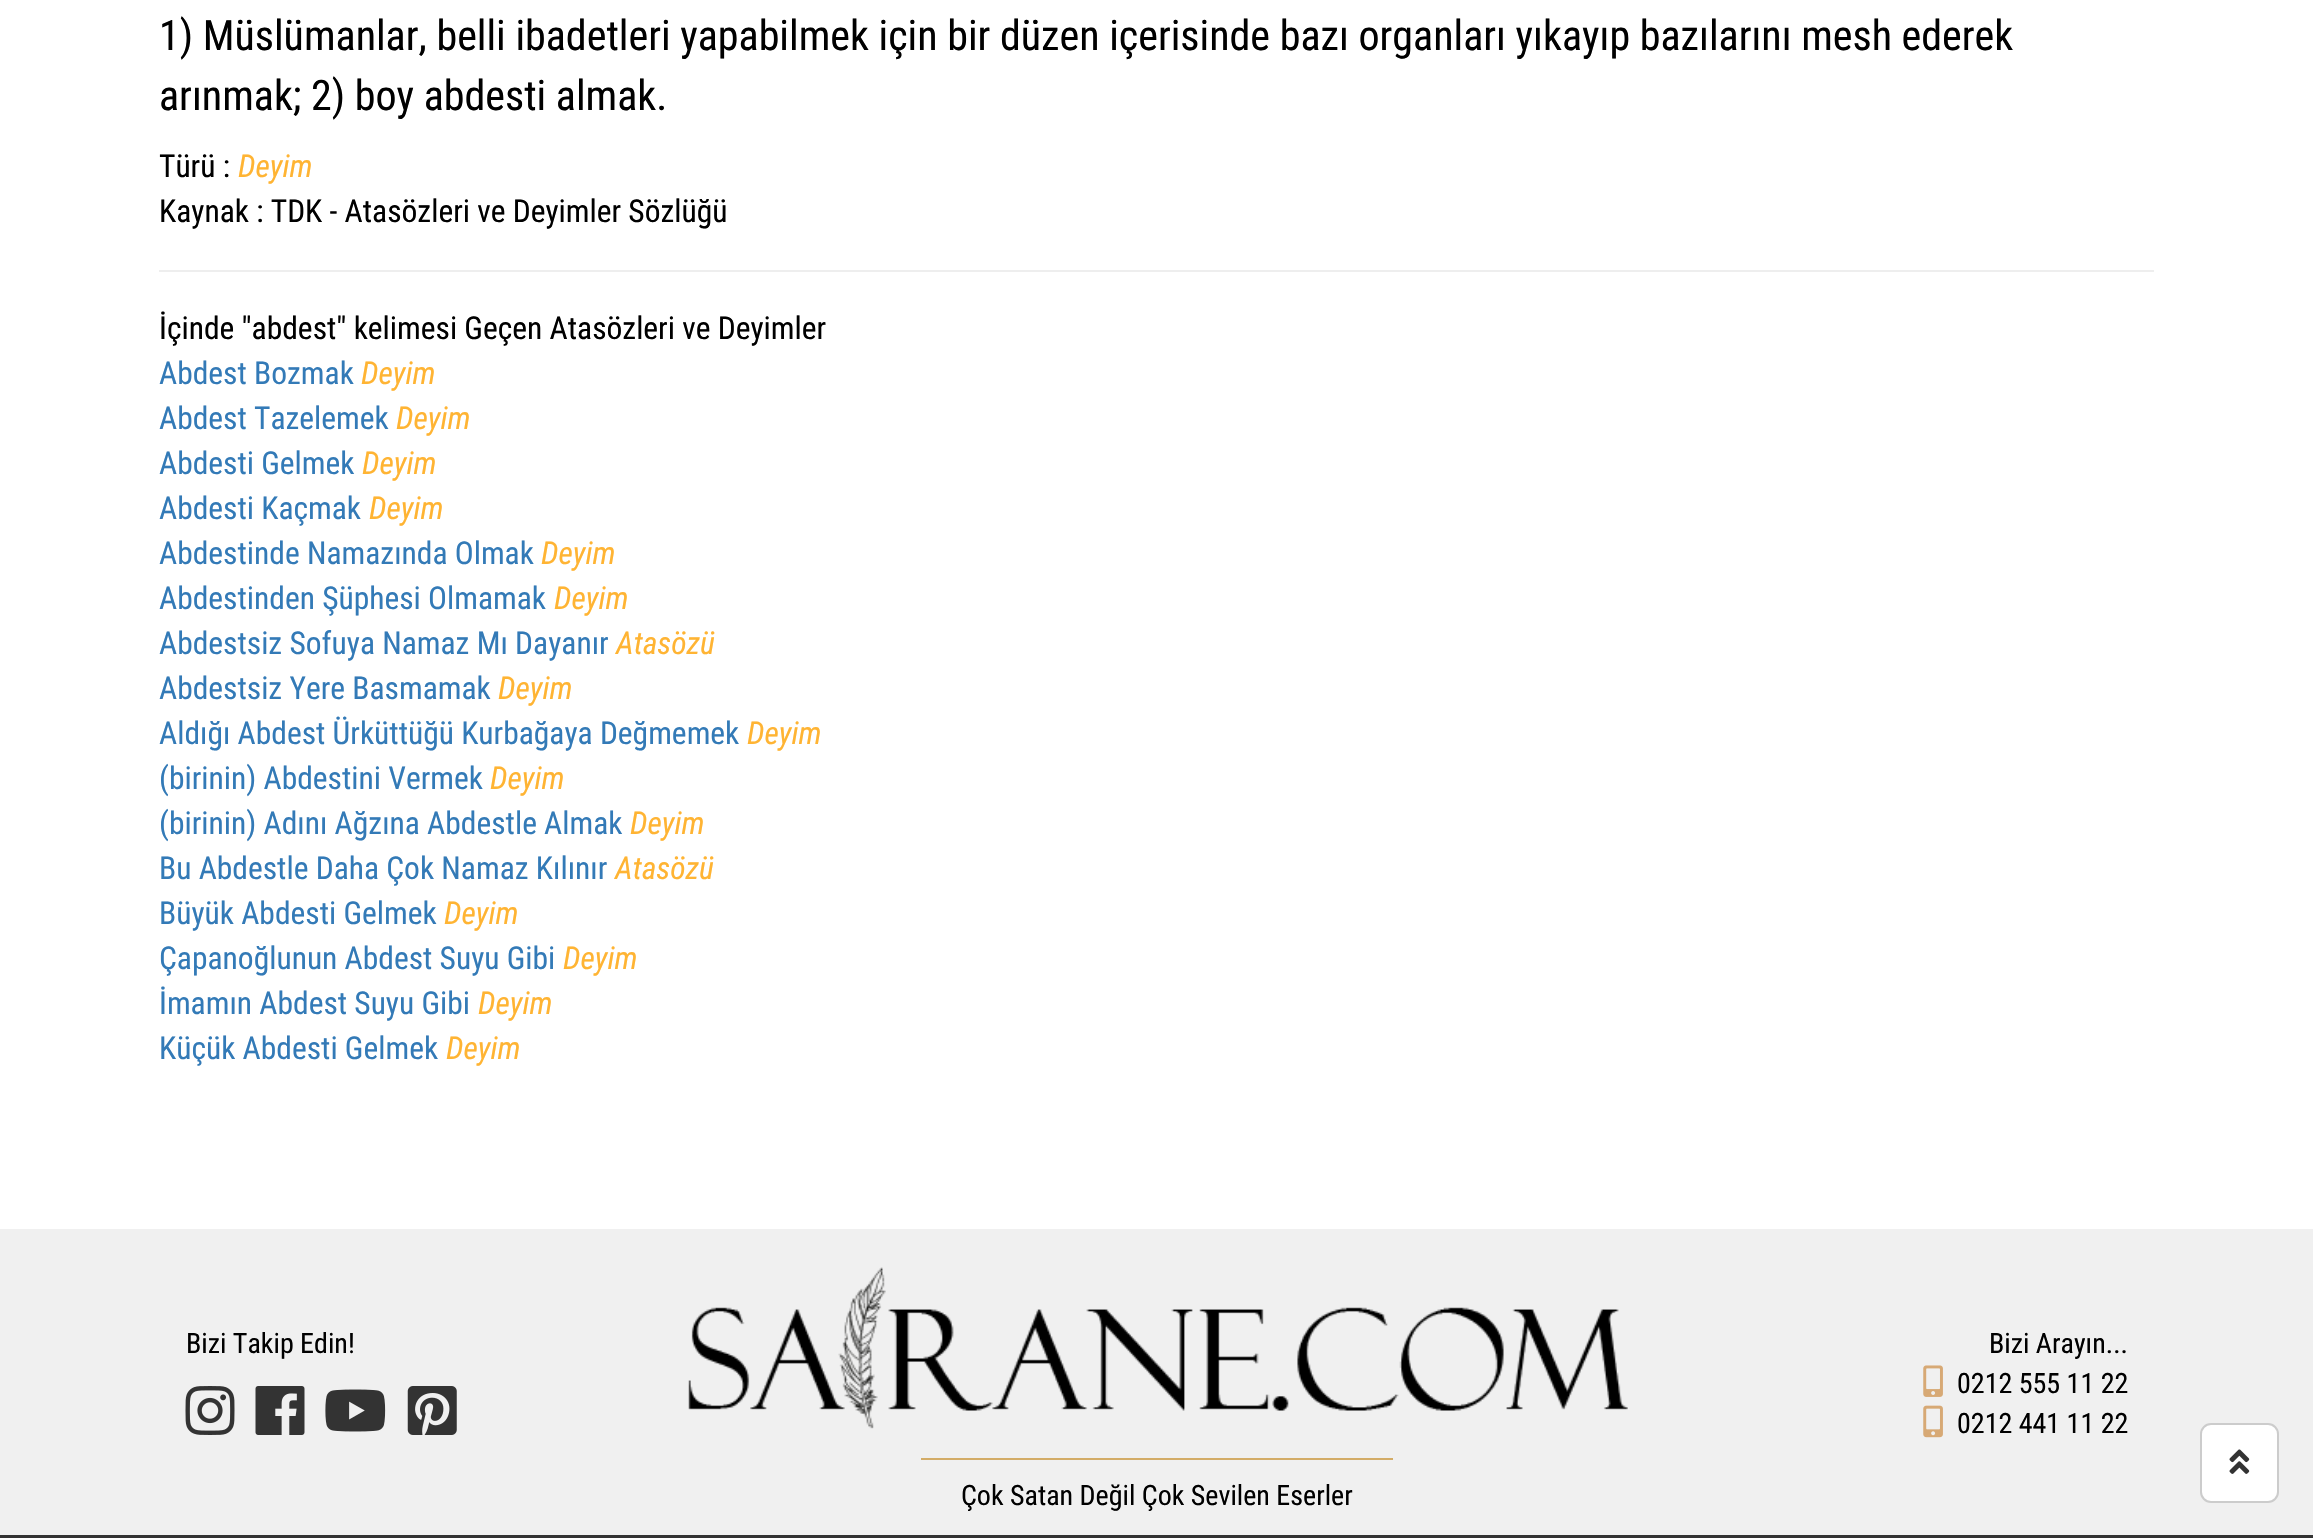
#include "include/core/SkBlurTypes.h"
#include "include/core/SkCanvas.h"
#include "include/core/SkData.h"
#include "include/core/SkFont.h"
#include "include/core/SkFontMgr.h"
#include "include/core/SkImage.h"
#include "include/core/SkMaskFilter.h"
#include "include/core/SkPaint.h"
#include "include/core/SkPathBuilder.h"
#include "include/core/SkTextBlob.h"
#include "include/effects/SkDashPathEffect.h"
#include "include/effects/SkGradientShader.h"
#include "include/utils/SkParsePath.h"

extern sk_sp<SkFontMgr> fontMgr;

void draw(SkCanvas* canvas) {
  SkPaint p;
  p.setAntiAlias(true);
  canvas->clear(SK_ColorWHITE);
  p.setColor(SkColorSetRGB(238, 238, 238));
  canvas->drawRect(SkRect::MakeLTRB(159, 270, 2154, 272), p);
  p.setColor(SkColorSetRGB(240, 240, 240));
  canvas->drawRect(SkRect::MakeLTRB(0, 1229, 2313, 1535), p);
  canvas->drawImageRect(SkImages::DeferredFromEncodedData(SkData::MakeFromFileName("images/1.png")), SkRect::MakeLTRB(185, 1386, 235, 1435), SkSamplingOptions());
  canvas->drawImageRect(SkImages::DeferredFromEncodedData(SkData::MakeFromFileName("images/2.png")), SkRect::MakeLTRB(255, 1386, 305, 1435), SkSamplingOptions());
  canvas->drawImageRect(SkImages::DeferredFromEncodedData(SkData::MakeFromFileName("images/3.png")), SkRect::MakeLTRB(325, 1389, 386, 1432), SkSamplingOptions());
  canvas->drawImageRect(SkImages::DeferredFromEncodedData(SkData::MakeFromFileName("images/4.png")), SkRect::MakeLTRB(407, 1386, 457, 1435), SkSamplingOptions());
  canvas->drawImageRect(SkImages::DeferredFromEncodedData(SkData::MakeFromFileName("images/5.png")), SkRect::MakeLTRB(1923, 1365, 1943, 1397), SkSamplingOptions());
  canvas->drawImageRect(SkImages::DeferredFromEncodedData(SkData::MakeFromFileName("images/6.png")), SkRect::MakeLTRB(1923, 1405, 1943, 1438), SkSamplingOptions());
  canvas->drawImageRect(SkImages::DeferredFromEncodedData(SkData::MakeFromFileName("images/7.png")), SkRect::MakeLTRB(688, 1267, 1628, 1429), SkSamplingOptions());
  p.setColor(SkColorSetRGB(211, 172, 103));
  canvas->drawRect(SkRect::MakeLTRB(921, 1458, 1393, 1460), p);
  p.setColor(SK_ColorWHITE);
  canvas->drawRoundRect(SkRect::MakeLTRB(2201, 1424, 2278, 1502), 10, 10, p);
  p.setStyle(SkPaint::kStroke_Style);
  p.setStrokeWidth(2);
  p.setColor(SkColorSetRGB(204, 204, 204));
  canvas->drawRoundRect(SkRect::MakeLTRB(2201, 1424, 2278, 1502), 10, 10, p);
  canvas->drawImageRect(SkImages::DeferredFromEncodedData(SkData::MakeFromFileName("images/8.png")), SkRect::MakeLTRB(2229, 1449, 2250, 1474), SkSamplingOptions());
  p.setStyle(SkPaint::kFill_Style);
  p.setColor(SkColorSetRGB(51, 51, 51));
  canvas->drawRect(SkRect::MakeLTRB(0, 1535, 2313, 1538), p);
  SkFont font1(fontMgr->matchFamilyStyle("Roboto Condensed", SkFontStyle::Normal()), 42);
  font1.setSubpixel(true);
  p.setColor(SK_ColorBLACK);
  canvas->drawString("1) Müslümanlar, belli ibadetleri yapabilmek için bir düzen içerisinde bazı organları yıkayıp bazılarını mesh ederek", 159, 50, font1, p);
  canvas->drawString("arınmak; 2) boy abdesti almak.", 159, 110, font1, p);
  SkFont font2(fontMgr->matchFamilyStyle("Roboto Condensed", SkFontStyle::Normal()), 31.5f);
  font2.setSubpixel(true);
  canvas->drawString("Türü :", 159, 177, font2, p);
  SkFont font3(fontMgr->matchFamilyStyle("Roboto Condensed", SkFontStyle::Italic()), 31.5f);
  font3.setSubpixel(true);
  p.setColor(SkColorSetRGB(255, 180, 51));
  canvas->drawString("Deyim", 238, 177, font3, p);
  p.setColor(SK_ColorBLACK);
  canvas->drawString("Kaynak : TDK - Atasözleri ve Deyimler Sözlüğü", 159, 222, font2, p);
  canvas->drawString("İçinde \"abdest\" kelimesi Geçen Atasözleri ve Deyimler", 159, 339, font2, p);
  p.setColor(SkColorSetRGB(51, 122, 183));
  canvas->drawString("Abdest Bozmak", 159, 384, font2, p);
  p.setColor(SkColorSetRGB(255, 180, 51));
  canvas->drawString("Deyim", 361, 384, font3, p);
  p.setColor(SkColorSetRGB(51, 122, 183));
  canvas->drawString("Abdest Tazelemek", 159, 429, font2, p);
  p.setColor(SkColorSetRGB(255, 180, 51));
  canvas->drawString("Deyim", 396, 429, font3, p);
  p.setColor(SkColorSetRGB(51, 122, 183));
  canvas->drawString("Abdesti Gelmek", 159, 474, font2, p);
  p.setColor(SkColorSetRGB(255, 180, 51));
  canvas->drawString("Deyim", 362, 474, font3, p);
  p.setColor(SkColorSetRGB(51, 122, 183));
  canvas->drawString("Abdesti Kaçmak", 159, 519, font2, p);
  p.setColor(SkColorSetRGB(255, 180, 51));
  canvas->drawString("Deyim", 369, 519, font3, p);
  p.setColor(SkColorSetRGB(51, 122, 183));
  canvas->drawString("Abdestinde Namazında Olmak", 159, 564, font2, p);
  p.setColor(SkColorSetRGB(255, 180, 51));
  canvas->drawString("Deyim", 541, 564, font3, p);
  p.setColor(SkColorSetRGB(51, 122, 183));
  canvas->drawString("Abdestinden Şüphesi Olmamak", 159, 609, font2, p);
  p.setColor(SkColorSetRGB(255, 180, 51));
  canvas->drawString("Deyim", 554, 609, font3, p);
  p.setColor(SkColorSetRGB(51, 122, 183));
  canvas->drawString("Abdestsiz Sofuya Namaz Mı Dayanır", 159, 654, font2, p);
  p.setColor(SkColorSetRGB(255, 180, 51));
  canvas->drawString("Atasözü", 616, 654, font3, p);
  p.setColor(SkColorSetRGB(51, 122, 183));
  canvas->drawString("Abdestsiz Yere Basmamak", 159, 699, font2, p);
  p.setColor(SkColorSetRGB(255, 180, 51));
  canvas->drawString("Deyim", 498, 699, font3, p);
  p.setColor(SkColorSetRGB(51, 122, 183));
  canvas->drawString("Aldığı Abdest Ürküttüğü Kurbağaya Değmemek", 159, 744, font2, p);
  p.setColor(SkColorSetRGB(255, 180, 51));
  canvas->drawString("Deyim", 747, 744, font3, p);
  p.setColor(SkColorSetRGB(51, 122, 183));
  canvas->drawString("(birinin) Abdestini Vermek", 159, 789, font2, p);
  p.setColor(SkColorSetRGB(255, 180, 51));
  canvas->drawString("Deyim", 490, 789, font3, p);
  p.setColor(SkColorSetRGB(51, 122, 183));
  canvas->drawString("(birinin) Adını Ağzına Abdestle Almak", 159, 834, font2, p);
  p.setColor(SkColorSetRGB(255, 180, 51));
  canvas->drawString("Deyim", 630, 834, font3, p);
  p.setColor(SkColorSetRGB(51, 122, 183));
  canvas->drawString("Bu Abdestle Daha Çok Namaz Kılınır", 159, 879, font2, p);
  p.setColor(SkColorSetRGB(255, 180, 51));
  canvas->drawString("Atasözü", 615, 879, font3, p);
  p.setColor(SkColorSetRGB(51, 122, 183));
  canvas->drawString("Büyük Abdesti Gelmek", 159, 924, font2, p);
  p.setColor(SkColorSetRGB(255, 180, 51));
  canvas->drawString("Deyim", 444, 924, font3, p);
  p.setColor(SkColorSetRGB(51, 122, 183));
  canvas->drawString("Çapanoğlunun Abdest Suyu Gibi", 159, 969, font2, p);
  p.setColor(SkColorSetRGB(255, 180, 51));
  canvas->drawString("Deyim", 563, 969, font3, p);
  p.setColor(SkColorSetRGB(51, 122, 183));
  canvas->drawString("İmamın Abdest Suyu Gibi", 159, 1014, font2, p);
  p.setColor(SkColorSetRGB(255, 180, 51));
  canvas->drawString("Deyim", 478, 1014, font3, p);
  p.setColor(SkColorSetRGB(51, 122, 183));
  canvas->drawString("Küçük Abdesti Gelmek", 159, 1059, font2, p);
  p.setColor(SkColorSetRGB(255, 180, 51));
  canvas->drawString("Deyim", 446, 1059, font3, p);
  SkFont font4(fontMgr->matchFamilyStyle("Roboto Condensed", SkFontStyle::Normal()), 28);
  font4.setSubpixel(true);
  p.setColor(SK_ColorBLACK);
  canvas->drawString("Bizi Takip Edin!", 186, 1353, font4, p);
  canvas->drawString("Bizi Arayın...", 1989, 1353, font4, p);
  canvas->drawString("0212 555 11 22", 1957, 1393, font4, p);
  canvas->drawString("0212 441 11 22", 1957, 1433, font4, p);
  canvas->drawString("Çok Satan Değil Çok Sevilen Eserler", 961, 1505, font4, p);
}
